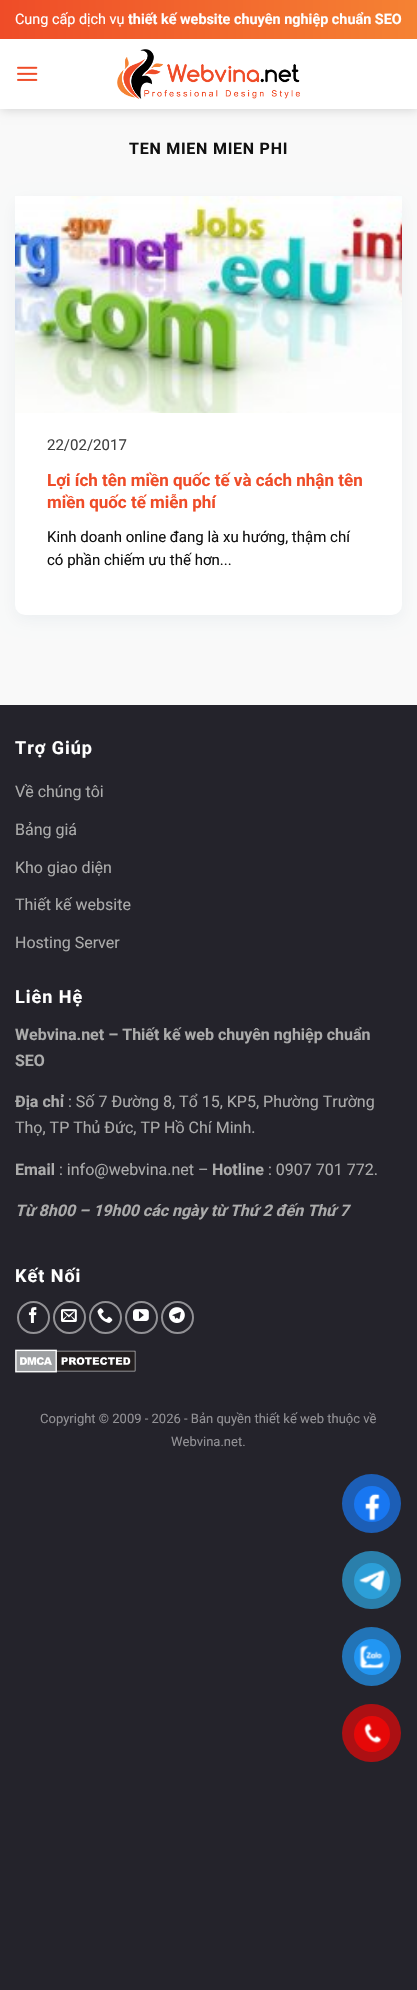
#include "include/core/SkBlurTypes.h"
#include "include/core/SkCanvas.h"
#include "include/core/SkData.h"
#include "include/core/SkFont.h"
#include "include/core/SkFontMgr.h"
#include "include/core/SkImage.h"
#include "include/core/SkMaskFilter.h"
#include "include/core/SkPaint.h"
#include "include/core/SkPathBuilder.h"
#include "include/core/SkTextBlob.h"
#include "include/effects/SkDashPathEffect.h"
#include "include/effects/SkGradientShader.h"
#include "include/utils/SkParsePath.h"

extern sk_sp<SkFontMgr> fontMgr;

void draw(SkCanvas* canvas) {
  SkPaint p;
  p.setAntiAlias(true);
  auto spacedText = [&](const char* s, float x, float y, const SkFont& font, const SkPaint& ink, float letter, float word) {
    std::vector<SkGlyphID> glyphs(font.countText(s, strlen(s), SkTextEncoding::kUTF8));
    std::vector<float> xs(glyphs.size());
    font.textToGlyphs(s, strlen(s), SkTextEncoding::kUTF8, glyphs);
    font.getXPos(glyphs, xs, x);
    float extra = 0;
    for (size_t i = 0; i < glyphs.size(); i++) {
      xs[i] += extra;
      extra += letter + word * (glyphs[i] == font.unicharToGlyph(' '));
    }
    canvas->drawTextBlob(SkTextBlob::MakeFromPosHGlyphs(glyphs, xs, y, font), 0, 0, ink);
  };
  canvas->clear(SkColorSetRGB(36, 35, 43));
  p.setColor(SkColorSetRGB(249, 249, 249));
  canvas->drawRect(SkRect::MakeLTRB(0, 109, 417, 705), p);
  p.setColor(SkColorSetARGB(38, 0, 0, 0));
  p.setMaskFilter(SkMaskFilter::MakeBlur(kNormal_SkBlurStyle, 5));
  canvas->drawRect(SkRect::MakeLTRB(1, 1, 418, 110), p);
  p.setMaskFilter(nullptr);
  {
    const SkColor colors[] = {SkColorSetRGB(239, 76, 40), SkColorSetRGB(245, 130, 51)};
    const float stops[] = {0, 1};
    const SkPoint ends[] = {{0, 20}, {417, 19}};
    p.setShader(SkGradientShader::MakeLinear(ends, colors, stops, 2, SkTileMode::kClamp));
    p.setAlpha(255);
  }
  canvas->drawRect(SkRect::MakeLTRB(0, 0, 417, 39), p);
  p.setShader(nullptr);
  p.setColor(SK_ColorWHITE);
  canvas->drawRect(SkRect::MakeLTRB(0, 39, 417, 109), p);
  canvas->drawImageRect(SkImages::DeferredFromEncodedData(SkData::MakeFromFileName("images/1.png")), SkRect::MakeLTRB(17, 66, 38, 81), SkSamplingOptions());
  canvas->drawImageRect(SkImages::DeferredFromEncodedData(SkData::MakeFromFileName("images/2.png")), SkRect::MakeLTRB(117, 49, 300, 99), SkSamplingOptions());
  p.setColor(SkColorSetARGB(13, 2, 55, 102));
  p.setMaskFilter(SkMaskFilter::MakeBlur(kNormal_SkBlurStyle, 8));
  canvas->drawRoundRect(SkRect::MakeLTRB(15, 201, 402, 620), 10, 10, p);
  p.setMaskFilter(nullptr);
  p.setColor(SK_ColorWHITE);
  canvas->drawRoundRect(SkRect::MakeLTRB(15, 196, 402, 615), 10, 10, p);
  canvas->drawImageRect(SkImages::DeferredFromEncodedData(SkData::MakeFromFileName("images/3.png")), SkRect::MakeLTRB(15, 196, 402, 413), SkSamplingOptions());
  p.setStyle(SkPaint::kStroke_Style);
  p.setStrokeWidth(2);
  p.setColor(SkColorSetRGB(146, 145, 149));
  canvas->drawCircle(33.5f, 1317.5f, 15.5f, p);
  canvas->drawImageRect(SkImages::DeferredFromEncodedData(SkData::MakeFromFileName("images/4.png")), SkRect::MakeLTRB(28, 1307, 37, 1323), SkSamplingOptions());
  canvas->drawCircle(69.5f, 1317.5f, 15.5f, p);
  canvas->drawImageRect(SkImages::DeferredFromEncodedData(SkData::MakeFromFileName("images/5.png")), SkRect::MakeLTRB(61, 1309, 77, 1322), SkSamplingOptions());
  canvas->drawCircle(105.5f, 1317.5f, 15.5f, p);
  canvas->drawImageRect(SkImages::DeferredFromEncodedData(SkData::MakeFromFileName("images/6.png")), SkRect::MakeLTRB(97, 1308, 113, 1323), SkSamplingOptions());
  canvas->drawCircle(141.5f, 1317.5f, 15.5f, p);
  canvas->drawImageRect(SkImages::DeferredFromEncodedData(SkData::MakeFromFileName("images/7.png")), SkRect::MakeLTRB(133, 1309, 149, 1321), SkSamplingOptions());
  canvas->drawCircle(177.5f, 1317.5f, 15.5f, p);
  canvas->drawImageRect(SkImages::DeferredFromEncodedData(SkData::MakeFromFileName("images/8.png")), SkRect::MakeLTRB(169, 1307, 185, 1323), SkSamplingOptions());
  canvas->drawImageRect(SkImages::DeferredFromEncodedData(SkData::MakeFromFileName("images/9.png")), SkRect::MakeLTRB(15, 1349, 136, 1373), SkSamplingOptions());
  p.setStyle(SkPaint::kFill_Style);
  p.setColor(SkColorSetRGB(28, 94, 182));
  canvas->drawCircle(371.5f, 1503.5f, 29.5f, p);
  p.setColor(SkColorSetRGB(24, 119, 242));
  canvas->drawCircle(372, 1504, 18, p);
  canvas->drawImageRect(SkImages::DeferredFromEncodedData(SkData::MakeFromFileName("images/10.png")), SkRect::MakeLTRB(365, 1493, 380, 1521), SkSamplingOptions());
  p.setColor(SkColorSetRGB(42, 127, 171));
  canvas->drawRoundRect(SkRect::MakeLTRB(342, 1551, 401, 1609), 29, 29, p);
  p.setColor(SkColorSetRGB(44, 159, 216));
  canvas->drawCircle(372, 1581, 18, p);
  canvas->drawImageRect(SkImages::DeferredFromEncodedData(SkData::MakeFromFileName("images/11.png")), SkRect::MakeLTRB(359, 1569, 385, 1592), SkSamplingOptions());
  p.setColor(SkColorSetRGB(34, 116, 183));
  canvas->drawCircle(371.5f, 1656.5f, 29.5f, p);
  p.setColor(SkColorSetRGB(33, 150, 243));
  canvas->drawCircle(372, 1657, 18, p);
  canvas->drawImageRect(SkImages::DeferredFromEncodedData(SkData::MakeFromFileName("images/12.png")), SkRect::MakeLTRB(359, 1645, 384, 1669), SkSamplingOptions());
  p.setColor(SkColorSetRGB(172, 16, 19));
  canvas->drawRoundRect(SkRect::MakeLTRB(342, 1704, 401, 1762), 29, 29, p);
  p.setColor(SkColorSetRGB(230, 8, 8));
  canvas->drawCircle(372, 1734, 18, p);
  canvas->drawImageRect(SkImages::DeferredFromEncodedData(SkData::MakeFromFileName("images/13.png")), SkRect::MakeLTRB(364, 1723, 382, 1744), SkSamplingOptions());
  SkFont font1(fontMgr->matchFamilyStyle("Roboto", SkFontStyle::Normal()), 14.4f);
  font1.setSubpixel(true);
  p.setColor(SK_ColorWHITE);
  canvas->drawString("Cung cấp dịch vụ", 15, 24, font1, p);
  SkFont font2(fontMgr->matchFamilyStyle("Roboto", SkFontStyle::Bold()), 14.4f);
  font2.setSubpixel(true);
  canvas->drawString("thiết kế website chuyên nghiệp chuẩn SEO", 128, 24, font2, p);
  SkFont font3(fontMgr->matchFamilyStyle("Roboto", SkFontStyle::Bold()), 16);
  font3.setSubpixel(true);
  p.setColor(SkColorSetRGB(17, 17, 17));
  spacedText("TEN MIEN MIEN PHI", 129, 154, font3, p, 0.75f, 0);
  SkFont font4(fontMgr->matchFamilyStyle("Roboto", SkFontStyle::Normal()), 15);
  font4.setSubpixel(true);
  p.setColor(SkColorSetRGB(65, 65, 65));
  canvas->drawString("22/02/2017", 47, 450, font4, p);
  SkFont font5(fontMgr->matchFamilyStyle("Roboto", SkFontStyle::Bold()), 17);
  font5.setSubpixel(true);
  p.setColor(SkColorSetRGB(239, 76, 40));
  canvas->drawString("Lợi ích tên miền quốc tế và cách nhận tên", 47, 486, font5, p);
  canvas->drawString("miền quốc tế miễn phí", 47, 508, font5, p);
  p.setColor(SkColorSetRGB(17, 17, 17));
  canvas->drawString("Kinh doanh online đang là xu hướng, thậm chí", 47, 542, font4, p);
  canvas->drawString("có phần chiếm ưu thế hơn...", 47, 565, font4, p);
  SkFont font6(fontMgr->matchFamilyStyle("Roboto", SkFontStyle::Bold()), 18);
  font6.setSubpixel(true);
  p.setColor(SK_ColorWHITE);
  spacedText("Trợ Giúp", 15, 754, font6, p, 1, 0);
  SkFont font7(fontMgr->matchFamilyStyle("Roboto", SkFontStyle::Normal()), 16);
  font7.setSubpixel(true);
  p.setColor(SkColorSetRGB(171, 171, 171));
  canvas->drawString("Về chúng tôi", 15, 797, font7, p);
  canvas->drawString("Bảng giá", 15, 835, font7, p);
  canvas->drawString("Kho giao diện", 15, 873, font7, p);
  canvas->drawString("Thiết kế website", 15, 910, font7, p);
  canvas->drawString("Hosting Server", 15, 948, font7, p);
  p.setColor(SK_ColorWHITE);
  spacedText("Liên Hệ", 15, 1003, font6, p, 1, 0);
  p.setColor(SkColorSetRGB(171, 171, 171));
  canvas->drawString("Webvina.net – Thiết kế web chuyên nghiệp chuẩn", 15, 1040, font3, p);
  canvas->drawString("SEO", 15, 1066, font3, p);
  canvas->drawString("Địa chỉ", 15, 1107, font3, p);
  canvas->drawString(": Số 7 Đường 8, Tổ 15, KP5, Phường Trường", 68, 1107, font7, p);
  canvas->drawString("Thọ, TP Thủ Đức, TP Hồ Chí Minh.", 15, 1133, font7, p);
  canvas->drawString("Email", 15, 1175, font3, p);
  canvas->drawString(": info@webvina.net –", 59, 1175, font7, p);
  canvas->drawString("Hotline", 212, 1175, font3, p);
  canvas->drawString(": 0907 701 772.", 268, 1175, font7, p);
  SkFont font8(fontMgr->matchFamilyStyle("Roboto", SkFontStyle::BoldItalic()), 16);
  font8.setSubpixel(true);
  canvas->drawString("Từ 8h00 – 19h00 các ngày từ Thứ 2 đến Thứ 7", 15, 1216, font8, p);
  p.setColor(SK_ColorWHITE);
  spacedText("Kết Nối", 15, 1282, font6, p, 1, 0);
  SkFont font9(fontMgr->matchFamilyStyle("Roboto", SkFontStyle::Normal()), 13);
  font9.setSubpixel(true);
  p.setColor(SkColorSetRGB(146, 145, 149));
  canvas->drawString("Copyright © 2009 - 2026 - Bản quyền thiết kế web thuộc về", 40, 1423, font9, p);
  canvas->drawString("Webvina.net.", 171, 1446, font9, p);
}
